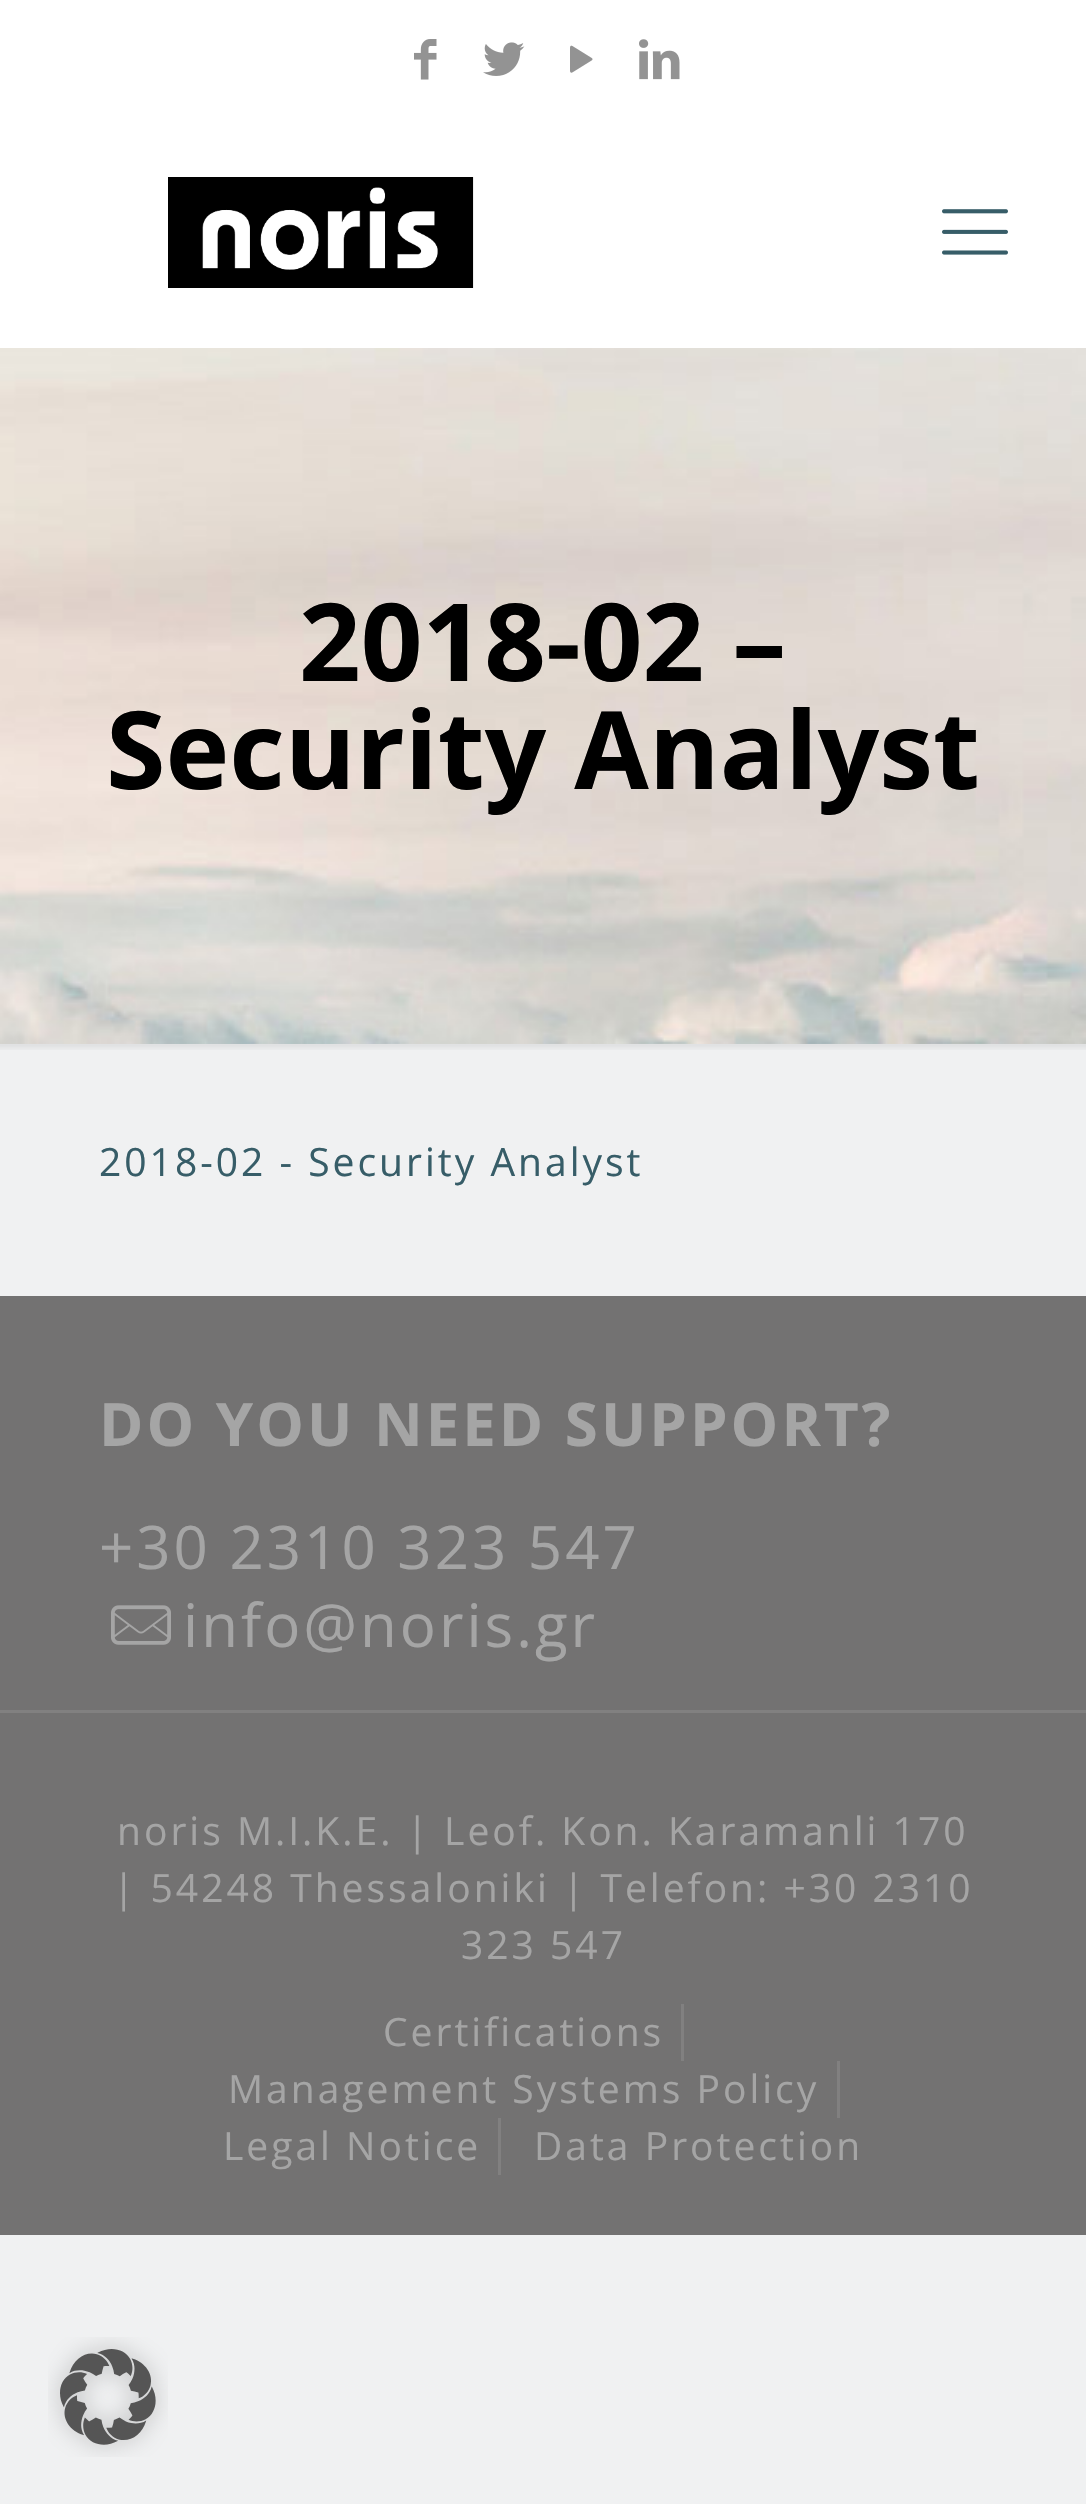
#include "include/core/SkBlurTypes.h"
#include "include/core/SkCanvas.h"
#include "include/core/SkData.h"
#include "include/core/SkFont.h"
#include "include/core/SkFontMgr.h"
#include "include/core/SkImage.h"
#include "include/core/SkMaskFilter.h"
#include "include/core/SkPaint.h"
#include "include/core/SkPathBuilder.h"
#include "include/core/SkTextBlob.h"
#include "include/effects/SkDashPathEffect.h"
#include "include/effects/SkGradientShader.h"
#include "include/utils/SkParsePath.h"

extern sk_sp<SkFontMgr> fontMgr;

void draw(SkCanvas* canvas) {
  SkPaint p;
  p.setAntiAlias(true);
  auto spacedText = [&](const char* s, float x, float y, const SkFont& font, const SkPaint& ink, float letter, float word) {
    std::vector<SkGlyphID> glyphs(font.countText(s, strlen(s), SkTextEncoding::kUTF8));
    std::vector<float> xs(glyphs.size());
    font.textToGlyphs(s, strlen(s), SkTextEncoding::kUTF8, glyphs);
    font.getXPos(glyphs, xs, x);
    float extra = 0;
    for (size_t i = 0; i < glyphs.size(); i++) {
      xs[i] += extra;
      extra += letter + word * (glyphs[i] == font.unicharToGlyph(' '));
    }
    canvas->drawTextBlob(SkTextBlob::MakeFromPosHGlyphs(glyphs, xs, y, font), 0, 0, ink);
  };
  canvas->clear(SkColorSetRGB(240, 241, 242));
  p.setColor(SK_ColorWHITE);
  canvas->drawRect(SkRect::MakeLTRB(0, 0, 1086, 348), p);
  canvas->drawImageRect(SkImages::DeferredFromEncodedData(SkData::MakeFromFileName("images/1.png")), SkRect::MakeLTRB(414, 39, 437, 80), SkSamplingOptions());
  canvas->drawImageRect(SkImages::DeferredFromEncodedData(SkData::MakeFromFileName("images/2.png")), SkRect::MakeLTRB(483, 42, 525, 76), SkSamplingOptions());
  canvas->drawImageRect(SkImages::DeferredFromEncodedData(SkData::MakeFromFileName("images/3.png")), SkRect::MakeLTRB(570, 45, 593, 73), SkSamplingOptions());
  canvas->drawImageRect(SkImages::DeferredFromEncodedData(SkData::MakeFromFileName("images/4.png")), SkRect::MakeLTRB(639, 39, 680, 80), SkSamplingOptions());
  canvas->drawImageRect(SkImages::DeferredFromEncodedData(SkData::MakeFromFileName("images/5.png")), SkRect::MakeLTRB(168, 177, 474, 288), SkSamplingOptions());
  canvas->drawImageRect(SkImages::DeferredFromEncodedData(SkData::MakeFromFileName("images/6.png")), SkRect::MakeLTRB(942, 209, 1008, 255), SkSamplingOptions());
  canvas->drawImageRect(SkImages::DeferredFromEncodedData(SkData::MakeFromFileName("images/7.png")), SkRect::MakeLTRB(0, 348, 1086, 1044), SkSamplingOptions());
  canvas->drawImageRect(SkImages::DeferredFromEncodedData(SkData::MakeFromFileName("images/8.png")), SkRect::MakeLTRB(0, 1044, 1086, 1050), SkSamplingOptions());
  p.setColor(SkColorSetRGB(115, 114, 114));
  canvas->drawRect(SkRect::MakeLTRB(0, 1296, 1086, 2235), p);
  canvas->drawImageRect(SkImages::DeferredFromEncodedData(SkData::MakeFromFileName("images/9.png")), SkRect::MakeLTRB(111, 1605, 171, 1645), SkSamplingOptions());
  p.setColor(SkColorSetRGB(129, 128, 128));
  canvas->drawRect(SkRect::MakeLTRB(0, 1710, 1086, 1713), p);
  canvas->drawRect(SkRect::MakeLTRB(681, 2004, 684, 2061), p);
  canvas->drawRect(SkRect::MakeLTRB(837, 2061, 840, 2118), p);
  canvas->drawRect(SkRect::MakeLTRB(498, 2118, 501, 2175), p);
  canvas->drawImageRect(SkImages::DeferredFromEncodedData(SkData::MakeFromFileName("images/10.png")), SkRect::MakeLTRB(48, 2337, 168, 2457), SkSamplingOptions());
  SkFont font1(fontMgr->matchFamilyStyle("Open Sans", SkFontStyle::Bold()), 108);
  font1.setSubpixel(true);
  p.setColor(SK_ColorBLACK);
  canvas->drawString("2018-02 –", 299, 681, font1, p);
  canvas->drawString("Security Analyst", 106, 789, font1, p);
  SkFont font2(fontMgr->matchFamilyStyle("Open Sans", SkFontStyle::Normal()), 39);
  font2.setSubpixel(true);
  p.setColor(SkColorSetRGB(55, 93, 104));
  spacedText("2018-02 - Security Analyst", 99, 1176, font2, p, 3, 0);
  SkFont font3(fontMgr->matchFamilyStyle("Open Sans", SkFontStyle::Bold()), 60);
  font3.setSubpixel(true);
  p.setColor(SkColorSetRGB(165, 165, 165));
  spacedText("DO YOU NEED SUPPORT?", 99, 1446, font3, p, 3, 0);
  SkFont font4(fontMgr->matchFamilyStyle("Open Sans", SkFontStyle::Normal()), 60);
  font4.setSubpixel(true);
  spacedText("+30 2310 323 547", 99, 1569, font4, p, 3, 0);
  spacedText("info@noris.gr", 183, 1647, font4, p, 3, 0);
  spacedText("noris M.I.K.E. | Leof. Kon. Karamanli 170", 117, 1845, font2, p, 3, 0);
  spacedText("| 54248 Thessaloniki | Telefon: +30 2310", 113, 1902, font2, p, 3, 0);
  spacedText("323 547", 461, 1959, font2, p, 3, 0);
  spacedText("Certifications", 383, 2046, font2, p, 3, 0);
  spacedText("Management Systems Policy", 228, 2103, font2, p, 3, 0);
  spacedText("Legal Notice", 223, 2160, font2, p, 3, 0);
  spacedText("Data Protection", 534, 2160, font2, p, 3, 0);
}
